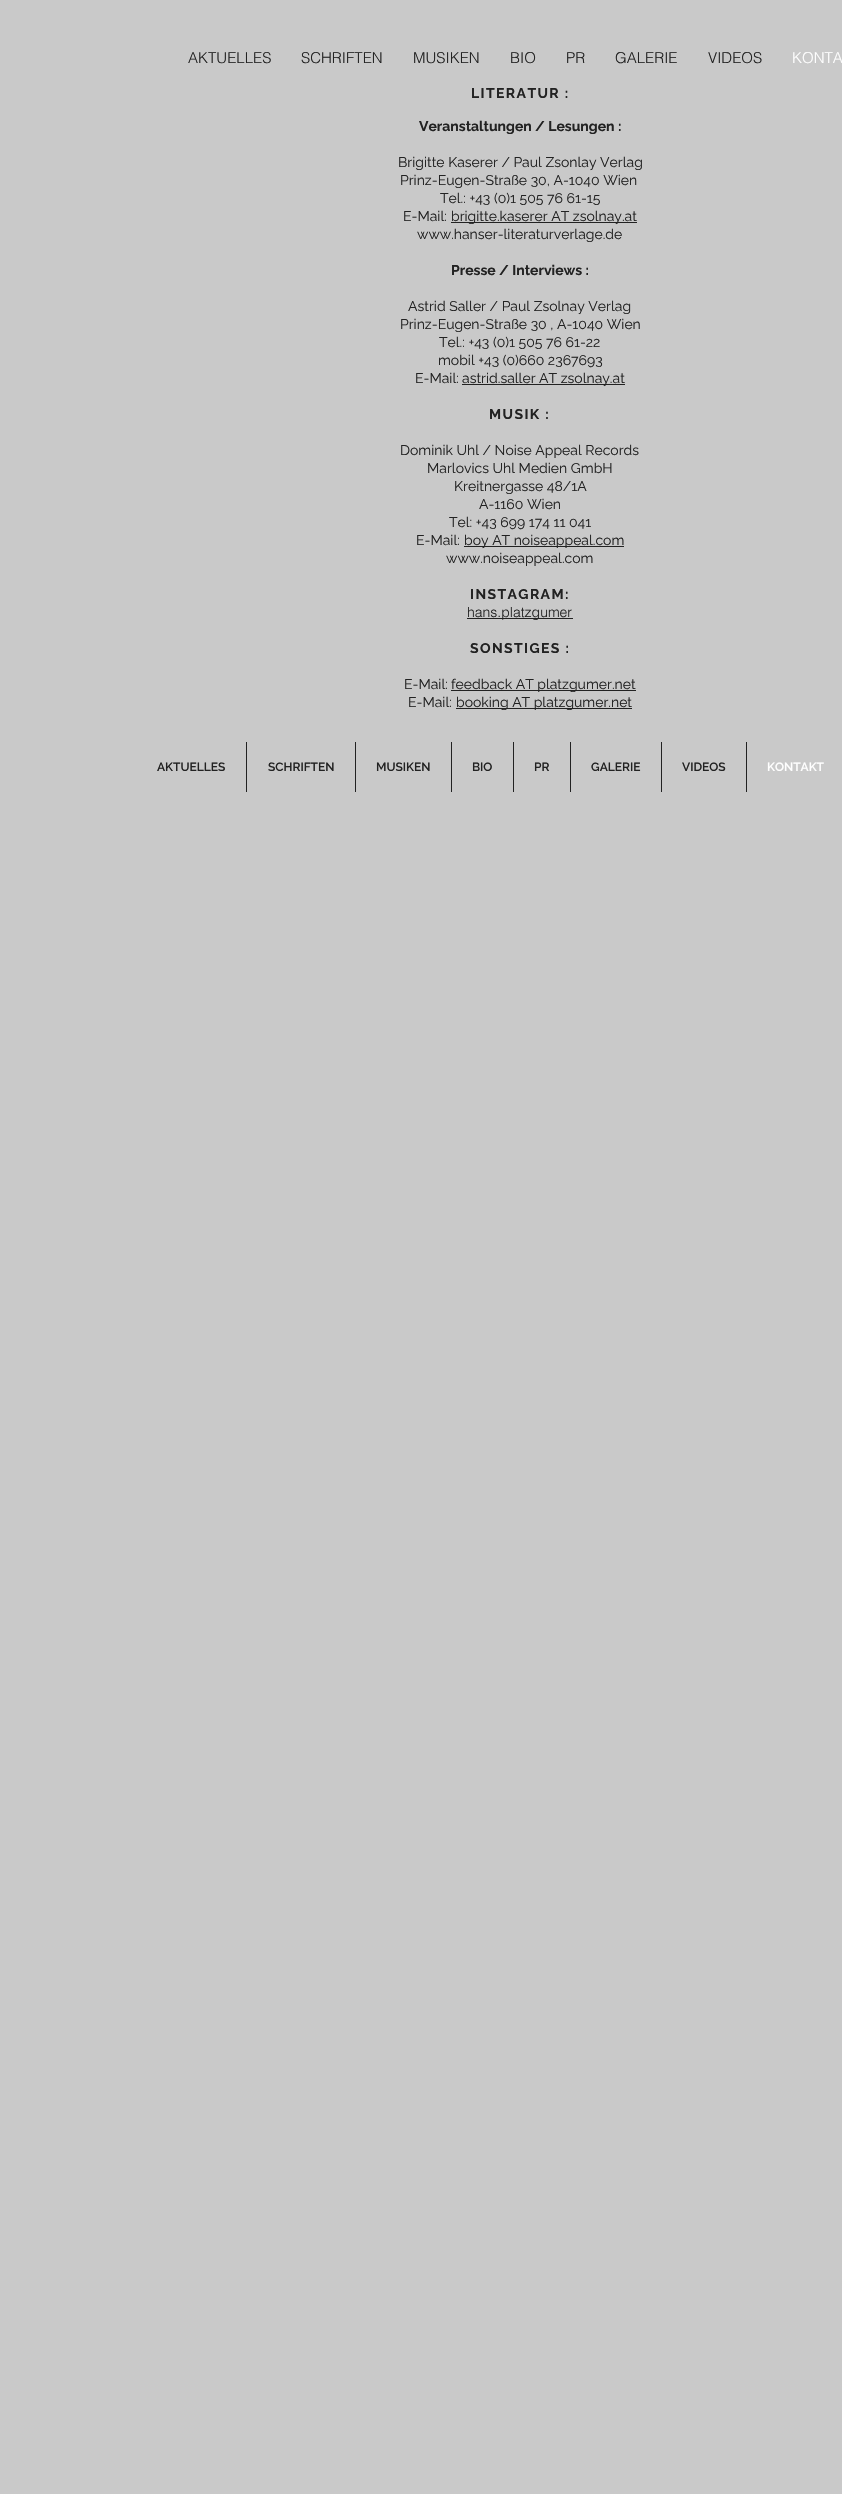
#include "include/core/SkBlurTypes.h"
#include "include/core/SkCanvas.h"
#include "include/core/SkData.h"
#include "include/core/SkFont.h"
#include "include/core/SkFontMgr.h"
#include "include/core/SkImage.h"
#include "include/core/SkMaskFilter.h"
#include "include/core/SkPaint.h"
#include "include/core/SkPathBuilder.h"
#include "include/core/SkTextBlob.h"
#include "include/effects/SkDashPathEffect.h"
#include "include/effects/SkGradientShader.h"
#include "include/utils/SkParsePath.h"

extern sk_sp<SkFontMgr> fontMgr;

void draw(SkCanvas* canvas) {
  SkPaint p;
  p.setAntiAlias(true);
  auto spacedText = [&](const char* s, float x, float y, const SkFont& font, const SkPaint& ink, float letter, float word) {
    std::vector<SkGlyphID> glyphs(font.countText(s, strlen(s), SkTextEncoding::kUTF8));
    std::vector<float> xs(glyphs.size());
    font.textToGlyphs(s, strlen(s), SkTextEncoding::kUTF8, glyphs);
    font.getXPos(glyphs, xs, x);
    float extra = 0;
    for (size_t i = 0; i < glyphs.size(); i++) {
      xs[i] += extra;
      extra += letter + word * (glyphs[i] == font.unicharToGlyph(' '));
    }
    canvas->drawTextBlob(SkTextBlob::MakeFromPosHGlyphs(glyphs, xs, y, font), 0, 0, ink);
  };
  canvas->clear(SkColorSetRGB(201, 201, 201));
  p.setColor(SkColorSetRGB(34, 34, 34));
  canvas->drawRect(SkRect::MakeLTRB(451, 222, 637, 223), p);
  canvas->drawRect(SkRect::MakeLTRB(462, 384, 625, 385), p);
  canvas->drawRect(SkRect::MakeLTRB(464, 546, 624, 547), p);
  canvas->drawRect(SkRect::MakeLTRB(467, 618, 573, 619), p);
  canvas->drawRect(SkRect::MakeLTRB(451, 690, 636, 691), p);
  canvas->drawRect(SkRect::MakeLTRB(456, 708, 632, 709), p);
  canvas->drawRect(SkRect::MakeLTRB(246, 742, 247, 792), p);
  canvas->drawRect(SkRect::MakeLTRB(355, 742, 356, 792), p);
  canvas->drawRect(SkRect::MakeLTRB(451, 742, 452, 792), p);
  canvas->drawRect(SkRect::MakeLTRB(513, 742, 514, 792), p);
  canvas->drawRect(SkRect::MakeLTRB(570, 742, 571, 792), p);
  canvas->drawRect(SkRect::MakeLTRB(661, 742, 662, 792), p);
  canvas->drawRect(SkRect::MakeLTRB(746, 742, 747, 792), p);
  SkFont font1(fontMgr->matchFamilyStyle("helvetica", SkFontStyle(300, SkFontStyle::kNormal_Width, SkFontStyle::kUpright_Slant)), 15);
  font1.setSubpixel(true);
  canvas->drawString("AKTUELLES", 188, 63, font1, p);
  canvas->drawString("SCHRIFTEN", 301, 63, font1, p);
  canvas->drawString("MUSIKEN", 413, 63, font1, p);
  canvas->drawString("BIO", 510, 63, font1, p);
  canvas->drawString("PR", 566, 63, font1, p);
  canvas->drawString("GALERIE", 615, 63, font1, p);
  canvas->drawString("VIDEOS", 708, 63, font1, p);
  p.setColor(SK_ColorWHITE);
  canvas->drawString("KONTA", 792, 63, font1, p);
  SkFont font2(fontMgr->matchFamilyStyle("Raleway", SkFontStyle::Bold()), 14);
  font2.setSubpixel(true);
  p.setColor(SkColorSetRGB(34, 34, 34));
  spacedText("LITERATUR :", 471, 98, font2, p, 1.4f, 0);
  canvas->drawString("Veranstaltungen / Lesungen :", 419, 131, font2, p);
  SkFont font3(fontMgr->matchFamilyStyle("Raleway", SkFontStyle::Normal()), 14);
  font3.setSubpixel(true);
  canvas->drawString("Brigitte Kaserer / Paul Zsonlay Verlag", 398, 167, font3, p);
  canvas->drawString("Prinz-Eugen-Straße 30, A-1040 Wien", 400, 185, font3, p);
  canvas->drawString("Tel.: +43 (0)1 505 76 61-15", 440, 203, font3, p);
  canvas->drawString("E-Mail:", 403, 221, font3, p);
  canvas->drawString("brigitte.kaserer AT zsolnay.at", 451, 221, font3, p);
  canvas->drawString("www.hanser-literaturverlage.de", 417, 239, font3, p);
  canvas->drawString("Presse / Interviews :", 451, 275, font2, p);
  canvas->drawString("Astrid Saller / Paul Zsolnay Verlag", 408, 311, font3, p);
  canvas->drawString("Prinz-Eugen-Straße 30 , A-1040 Wien", 400, 329, font3, p);
  canvas->drawString("Tel.: +43 (0)1 505 76 61-22", 439, 347, font3, p);
  canvas->drawString("mobil +43 (0)660 2367693", 438, 365, font3, p);
  canvas->drawString("E-Mail:", 415, 383, font3, p);
  canvas->drawString("astrid.saller AT zsolnay.at", 462, 383, font3, p);
  spacedText("MUSIK :", 489, 419, font2, p, 1.4f, 0);
  canvas->drawString("Dominik Uhl / Noise Appeal Records", 400, 455, font3, p);
  canvas->drawString("Marlovics Uhl Medien GmbH", 427, 473, font3, p);
  canvas->drawString("Kreitnergasse 48/1A", 454, 491, font3, p);
  canvas->drawString("A-1160 Wien", 479, 509, font3, p);
  canvas->drawString("Tel: +43 699 174 11 041", 449, 527, font3, p);
  canvas->drawString("E-Mail:", 416, 545, font3, p);
  canvas->drawString("boy AT noiseappeal.com", 464, 545, font3, p);
  canvas->drawString("www.noiseappeal.com", 446, 563, font3, p);
  spacedText("INSTAGRAM:", 470, 599, font2, p, 1.4f, 0);
  SkFont font4(fontMgr->matchFamilyStyle("helvetica", SkFontStyle(300, SkFontStyle::kNormal_Width, SkFontStyle::kUpright_Slant)), 14);
  font4.setSubpixel(true);
  canvas->drawString("hans.platzgumer", 467, 617, font4, p);
  spacedText("SONSTIGES :", 470, 653, font2, p, 1.4f, 0);
  canvas->drawString("E-Mail:", 404, 689, font3, p);
  canvas->drawString("feedback AT platzgumer.net", 451, 689, font3, p);
  canvas->drawString("E-Mail:", 408, 707, font3, p);
  canvas->drawString("booking AT platzgumer.net", 456, 707, font3, p);
  SkFont font5(fontMgr->matchFamilyStyle("Raleway", SkFontStyle(600, SkFontStyle::kNormal_Width, SkFontStyle::kUpright_Slant)), 12);
  font5.setSubpixel(true);
  canvas->drawString("AKTUELLES", 157, 771, font5, p);
  canvas->drawString("SCHRIFTEN", 268, 771, font5, p);
  canvas->drawString("MUSIKEN", 376, 771, font5, p);
  canvas->drawString("BIO", 472, 771, font5, p);
  canvas->drawString("PR", 534, 771, font5, p);
  canvas->drawString("GALERIE", 591, 771, font5, p);
  canvas->drawString("VIDEOS", 682, 771, font5, p);
  p.setColor(SK_ColorWHITE);
  canvas->drawString("KONTAKT", 767, 771, font5, p);
}
